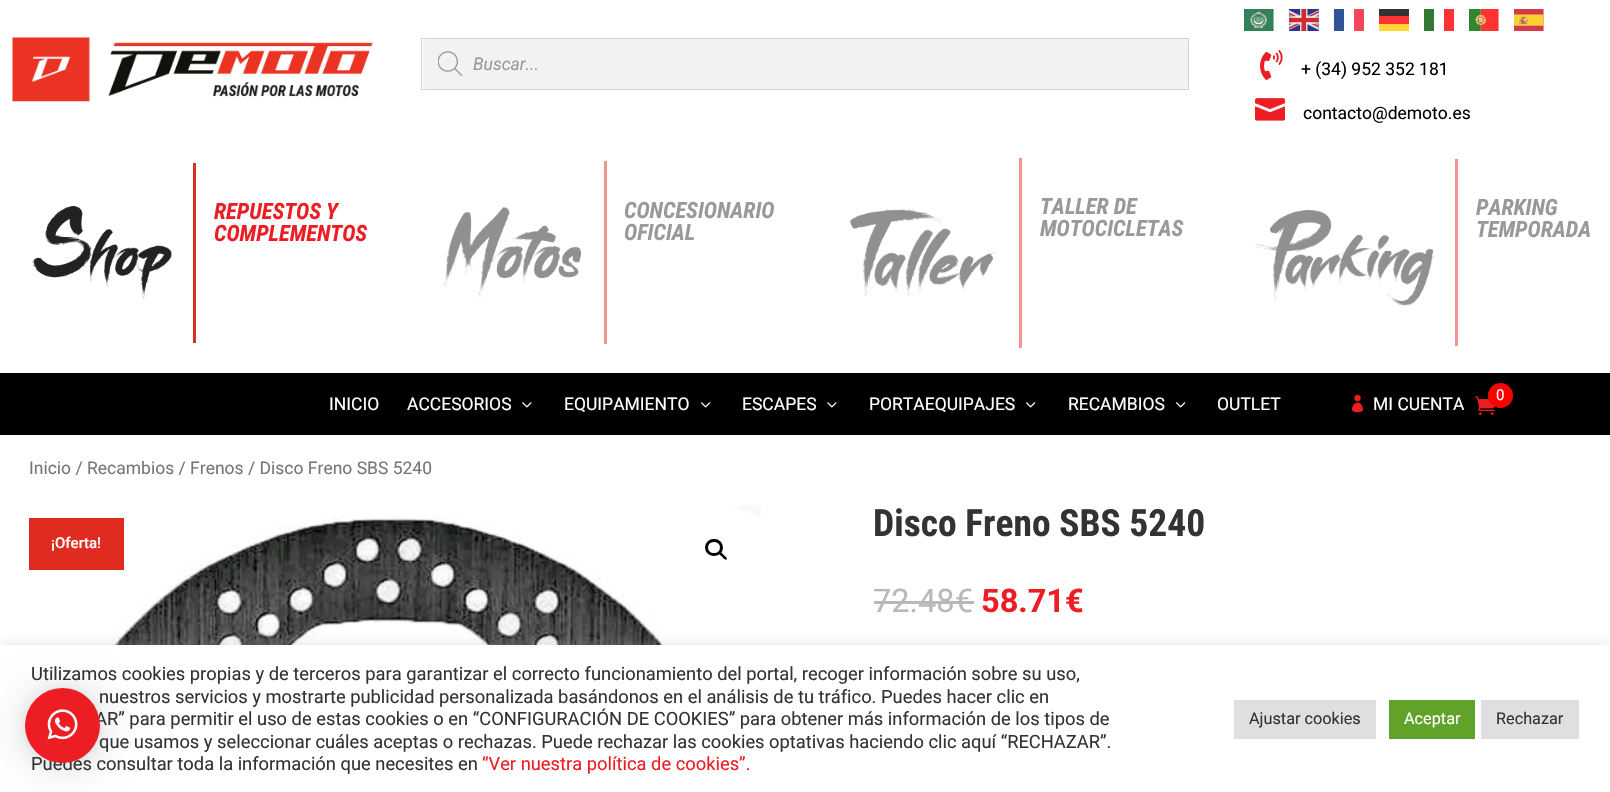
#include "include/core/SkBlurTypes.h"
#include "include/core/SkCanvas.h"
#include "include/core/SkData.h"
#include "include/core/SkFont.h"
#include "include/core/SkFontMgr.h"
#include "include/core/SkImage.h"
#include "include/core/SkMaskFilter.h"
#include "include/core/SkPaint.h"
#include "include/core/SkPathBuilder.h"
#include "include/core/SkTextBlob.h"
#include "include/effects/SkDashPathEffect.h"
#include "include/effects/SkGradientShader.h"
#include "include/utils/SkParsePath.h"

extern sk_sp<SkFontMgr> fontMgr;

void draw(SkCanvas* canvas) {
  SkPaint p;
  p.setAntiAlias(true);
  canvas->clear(SK_ColorWHITE);
  canvas->drawImageRect(SkImages::DeferredFromEncodedData(SkData::MakeFromFileName("images/1.png")), SkRect::MakeLTRB(12, 37, 373, 102), SkSamplingOptions());
  p.setStyle(SkPaint::kStroke_Style);
  p.setStrokeWidth(1);
  p.setColor(SkColorSetRGB(211, 211, 211));
  canvas->drawRect(SkRect::MakeLTRB(421.5f, 38.5f, 1188.5f, 89.5f), p);
  p.setStyle(SkPaint::kFill_Style);
  p.setColor(SkColorSetRGB(242, 242, 242));
  canvas->drawRoundRect(SkRect::MakeLTRB(423.5f, 39.5f, 1187.5f, 88.5f), 3.5f, 3.5f, p);
  p.setStyle(SkPaint::kStroke_Style);
  canvas->drawRoundRect(SkRect::MakeLTRB(423.5f, 39.5f, 1187.5f, 88.5f), 3.5f, 3.5f, p);
  canvas->drawImageRect(SkImages::DeferredFromEncodedData(SkData::MakeFromFileName("images/2.png")), SkRect::MakeLTRB(438, 51, 463, 76), SkSamplingOptions());
  canvas->drawImageRect(SkImages::DeferredFromEncodedData(SkData::MakeFromFileName("images/3.png")), SkRect::MakeLTRB(1244, 9, 1274, 31), SkSamplingOptions());
  canvas->drawImageRect(SkImages::DeferredFromEncodedData(SkData::MakeFromFileName("images/4.png")), SkRect::MakeLTRB(1289, 9, 1319, 31), SkSamplingOptions());
  p.setStyle(SkPaint::kFill_Style);
  p.setColor(SkColorSetRGB(51, 81, 153));
  canvas->drawRect(SkRect::MakeLTRB(1334, 9, 1344, 31), p);
  p.setColor(SkColorSetRGB(245, 70, 89));
  canvas->drawRect(SkRect::MakeLTRB(1354, 9, 1364, 31), p);
  p.setColor(SkColorSetRGB(51, 51, 51));
  canvas->drawRect(SkRect::MakeLTRB(1379, 9, 1409, 16), p);
  p.setColor(SkColorSetRGB(255, 51, 51));
  canvas->drawRect(SkRect::MakeLTRB(1379, 16, 1409, 24), p);
  p.setColor(SkColorSetRGB(255, 214, 51));
  canvas->drawRect(SkRect::MakeLTRB(1379, 24, 1409, 31), p);
  p.setColor(SkColorSetRGB(51, 121, 51));
  canvas->drawRect(SkRect::MakeLTRB(1424, 9, 1434, 31), p);
  p.setColor(SkColorSetRGB(253, 51, 51));
  canvas->drawRect(SkRect::MakeLTRB(1444, 9, 1454, 31), p);
  canvas->drawImageRect(SkImages::DeferredFromEncodedData(SkData::MakeFromFileName("images/5.png")), SkRect::MakeLTRB(1469, 9, 1499, 31), SkSamplingOptions());
  canvas->drawImageRect(SkImages::DeferredFromEncodedData(SkData::MakeFromFileName("images/6.png")), SkRect::MakeLTRB(1514, 9, 1544, 31), SkSamplingOptions());
  canvas->drawImageRect(SkImages::DeferredFromEncodedData(SkData::MakeFromFileName("images/7.png")), SkRect::MakeLTRB(1260, 50, 1283, 80), SkSamplingOptions());
  canvas->drawImageRect(SkImages::DeferredFromEncodedData(SkData::MakeFromFileName("images/8.png")), SkRect::MakeLTRB(1255, 98, 1285, 121), SkSamplingOptions());
  p.setColor(SkColorSetRGB(224, 43, 32));
  canvas->drawRect(SkRect::MakeLTRB(193, 163, 196, 343), p);
  canvas->drawImageRect(SkImages::DeferredFromEncodedData(SkData::MakeFromFileName("images/9.png")), SkRect::MakeLTRB(32, 206, 172, 299), SkSamplingOptions());
  p.setColor(SkColorSetRGB(240, 149, 144));
  canvas->drawRect(SkRect::MakeLTRB(604, 161, 607, 344), p);
  canvas->drawImageRect(SkImages::DeferredFromEncodedData(SkData::MakeFromFileName("images/10.png")), SkRect::MakeLTRB(444, 207, 581, 298), SkSamplingOptions());
  canvas->drawRect(SkRect::MakeLTRB(1019, 158, 1022, 348), p);
  canvas->drawImageRect(SkImages::DeferredFromEncodedData(SkData::MakeFromFileName("images/11.png")), SkRect::MakeLTRB(849, 208, 996, 297), SkSamplingOptions());
  canvas->drawRect(SkRect::MakeLTRB(1455, 159, 1458, 346), p);
  canvas->drawImageRect(SkImages::DeferredFromEncodedData(SkData::MakeFromFileName("images/12.png")), SkRect::MakeLTRB(1254, 210, 1436, 306), SkSamplingOptions());
  p.setColor(SK_ColorBLACK);
  canvas->drawRect(SkRect::MakeLTRB(0, 373, 1610, 435), p);
  canvas->drawImageRect(SkImages::DeferredFromEncodedData(SkData::MakeFromFileName("images/13.png")), SkRect::MakeLTRB(1475, 396, 1495, 415), SkSamplingOptions());
  p.setColor(SkColorSetRGB(255, 0, 0));
  canvas->drawCircle(1500.5f, 395.5f, 12.5f, p);
  canvas->drawImageRect(SkImages::DeferredFromEncodedData(SkData::MakeFromFileName("images/14.png")), SkRect::MakeLTRB(522, 402, 532, 408), SkSamplingOptions());
  canvas->drawImageRect(SkImages::DeferredFromEncodedData(SkData::MakeFromFileName("images/15.png")), SkRect::MakeLTRB(701, 402, 711, 408), SkSamplingOptions());
  canvas->drawImageRect(SkImages::DeferredFromEncodedData(SkData::MakeFromFileName("images/14.png")), SkRect::MakeLTRB(827, 402, 837, 408), SkSamplingOptions());
  canvas->drawImageRect(SkImages::DeferredFromEncodedData(SkData::MakeFromFileName("images/15.png")), SkRect::MakeLTRB(1026, 402, 1036, 408), SkSamplingOptions());
  canvas->drawImageRect(SkImages::DeferredFromEncodedData(SkData::MakeFromFileName("images/15.png")), SkRect::MakeLTRB(1176, 402, 1186, 408), SkSamplingOptions());
  canvas->drawImageRect(SkImages::DeferredFromEncodedData(SkData::MakeFromFileName("images/16.png")), SkRect::MakeLTRB(1352, 394, 1363, 413), SkSamplingOptions());
  canvas->drawImageRect(SkImages::DeferredFromEncodedData(SkData::MakeFromFileName("images/17.png")), SkRect::MakeLTRB(17, 505, 761, 645), SkSamplingOptions());
  p.setStyle(SkPaint::kStroke_Style);
  p.setStrokeWidth(3);
  p.setColor(SK_ColorBLACK);
  canvas->drawRoundRect(SkRect::MakeLTRB(706.5f, 540.5f, 721.5f, 554.5f), 7, 7, p);
  p.setStyle(SkPaint::kFill_Style);
  canvas->drawPath(SkPathBuilder().moveTo(719.5f, 552).cubicTo(720.5f, 551, 723, 554, 723.5f, 555).cubicTo(724.5f, 555.5f, 728, 558, 726.5f, 559.5f).cubicTo(725, 560.5f, 722.5f, 557.5f, 722, 556.5f).cubicTo(721, 556, 718, 553.5f, 719.5f, 552).close().detach(), p);
  p.setColor(SkColorSetRGB(224, 43, 32));
  canvas->drawRect(SkRect::MakeLTRB(29, 518, 124, 570), p);
  p.setColor(SkColorSetRGB(184, 184, 184));
  canvas->drawRect(SkRect::MakeLTRB(874, 601, 974, 604), p);
  p.setColor(SkColorSetARGB(77, 172, 171, 171));
  p.setMaskFilter(SkMaskFilter::MakeBlur(kNormal_SkBlurStyle, 6));
  canvas->drawRect(SkRect::MakeLTRB(0, 644, 1610, 791), p);
  p.setMaskFilter(nullptr);
  p.setColor(SK_ColorWHITE);
  canvas->drawRect(SkRect::MakeLTRB(0, 645, 1610, 792), p);
  p.setColor(SkColorSetARGB(41, 0, 0, 0));
  p.setMaskFilter(SkMaskFilter::MakeBlur(kNormal_SkBlurStyle, 20));
  canvas->drawRoundRect(SkRect::MakeLTRB(25, 690, 100, 765), 37.5f, 37.5f, p);
  p.setMaskFilter(nullptr);
  p.setColor(SkColorSetARGB(15, 0, 0, 0));
  p.setMaskFilter(SkMaskFilter::MakeBlur(kNormal_SkBlurStyle, 4));
  canvas->drawRoundRect(SkRect::MakeLTRB(25, 689, 100, 764), 37.5f, 37.5f, p);
  p.setMaskFilter(nullptr);
  p.setColor(SkColorSetRGB(222, 223, 224));
  canvas->drawRect(SkRect::MakeLTRB(1234, 700, 1376, 739), p);
  p.setColor(SkColorSetRGB(97, 162, 41));
  canvas->drawRect(SkRect::MakeLTRB(1389, 700, 1475, 739), p);
  p.setColor(SkColorSetRGB(222, 223, 224));
  canvas->drawRect(SkRect::MakeLTRB(1481, 700, 1579, 739), p);
  SkFont font1(fontMgr->matchFamilyStyle("Roboto", SkFontStyle::Italic()), 17.5f);
  font1.setSubpixel(true);
  p.setColor(SkColorSetRGB(153, 153, 153));
  canvas->drawString("Buscar...", 473, 70, font1, p);
  SkFont font2(fontMgr->matchFamilyStyle("Roboto", SkFontStyle::Normal()), 17.5f);
  font2.setSubpixel(true);
  p.setColor(SK_ColorBLACK);
  canvas->drawString("+ (34) 952 352 181", 1301, 75, font2, p);
  canvas->drawString("contacto@demoto.es", 1303, 119, font2, p);
  SkFont font3(fontMgr->matchFamilyStyle("Roboto Condensed", SkFontStyle::BoldItalic()), 22.5f);
  font3.setSubpixel(true);
  p.setColor(SkColorSetRGB(237, 29, 36));
  canvas->drawString("REPUESTOS Y", 214, 219, font3, p);
  canvas->drawString("COMPLEMENTOS", 214, 241, font3, p);
  p.setColor(SkColorSetRGB(153, 153, 153));
  canvas->drawString("CONCESIONARIO", 624, 218, font3, p);
  canvas->drawString("OFICIAL", 624, 240, font3, p);
  canvas->drawString("TALLER DE", 1040, 214, font3, p);
  canvas->drawString("MOTOCICLETAS", 1040, 236, font3, p);
  canvas->drawString("PARKING", 1476, 215, font3, p);
  canvas->drawString("TEMPORADA", 1476, 237, font3, p);
  SkFont font4(fontMgr->matchFamilyStyle("Roboto", SkFontStyle::Normal()), 15);
  font4.setSubpixel(true);
  p.setColor(SK_ColorWHITE);
  canvas->drawString("0", 1496, 400, font4, p);
  canvas->drawString("INICIO", 329, 410, font2, p);
  canvas->drawString("ACCESORIOS", 407, 410, font2, p);
  canvas->drawString("EQUIPAMIENTO", 564, 410, font2, p);
  canvas->drawString("ESCAPES", 742, 410, font2, p);
  canvas->drawString("PORTAEQUIPAJES", 869, 410, font2, p);
  canvas->drawString("RECAMBIOS", 1068, 410, font2, p);
  canvas->drawString("OUTLET", 1217, 410, font2, p);
  canvas->drawString("MI CUENTA", 1373, 410, font2, p);
  p.setColor(SkColorSetRGB(118, 118, 118));
  canvas->drawString("Inicio / Recambios / Frenos / Disco Freno SBS 5240", 29, 474, font2, p);
  SkFont font5(fontMgr->matchFamilyStyle("Roboto", SkFontStyle(500, SkFontStyle::kNormal_Width, SkFontStyle::kUpright_Slant)), 15);
  font5.setSubpixel(true);
  p.setColor(SK_ColorWHITE);
  canvas->drawString("¡Oferta!", 51, 548, font5, p);
  SkFont font6(fontMgr->matchFamilyStyle("Roboto Condensed", SkFontStyle::Bold()), 37.5f);
  font6.setSubpixel(true);
  p.setColor(SkColorSetRGB(51, 51, 51));
  canvas->drawString("Disco Freno SBS 5240", 873, 536, font6, p);
  SkFont font7(fontMgr->matchFamilyStyle("Roboto", SkFontStyle::Normal()), 32.5f);
  font7.setSubpixel(true);
  p.setColor(SkColorSetRGB(184, 184, 184));
  canvas->drawString("72.48€", 873, 612, font7, p);
  SkFont font8(fontMgr->matchFamilyStyle("Roboto", SkFontStyle::Bold()), 32.5f);
  font8.setSubpixel(true);
  p.setColor(SkColorSetRGB(237, 29, 36));
  canvas->drawString("58.71€", 981, 612, font8, p);
  SkFont font9(fontMgr->matchFamilyStyle("Roboto", SkFontStyle::Normal()), 18.33f);
  font9.setSubpixel(true);
  p.setColor(SkColorSetRGB(51, 51, 51));
  canvas->drawString("Utilizamos cookies propias y de terceros para garantizar el correcto funcionamiento del portal, recoger información sobre su uso,", 31, 680, font9, p);
  canvas->drawString("nuestros servicios y mostrarte publicidad personalizada basándonos en el análisis de tu tráfico. Puedes hacer clic en", 99, 703, font9, p);
  canvas->drawString("AR” para permitir el uso de estas cookies o en “CONFIGURACIÓN DE COOKIES” para obtener más información de los tipos de", 95, 725, font9, p);
  canvas->drawString("que usamos y seleccionar cuáles aceptas o rechazas. Puede rechazar las cookies optativas haciendo clic aquí “RECHAZAR”.", 99, 748, font9, p);
  canvas->drawString("Puedes consultar toda la información que necesites en", 31, 770, font9, p);
  p.setColor(SkColorSetRGB(237, 29, 36));
  canvas->drawCircle(62.5f, 725.5f, 37.5f, p);
  canvas->drawImageRect(SkImages::DeferredFromEncodedData(SkData::MakeFromFileName("images/18.png")), SkRect::MakeLTRB(47, 709, 78, 740), SkSamplingOptions());
  canvas->drawString("“Ver nuestra política de cookies”.", 482, 770, font9, p);
  SkFont font10(fontMgr->matchFamilyStyle("Roboto", SkFontStyle::Normal()), 16.25f);
  font10.setSubpixel(true);
  p.setColor(SkColorSetRGB(51, 51, 51));
  canvas->drawString("Ajustar cookies", 1249, 724, font10, p);
  p.setColor(SK_ColorWHITE);
  canvas->drawString("Aceptar", 1404, 724, font10, p);
  p.setColor(SkColorSetRGB(51, 51, 51));
  canvas->drawString("Rechazar", 1496, 724, font10, p);
}
